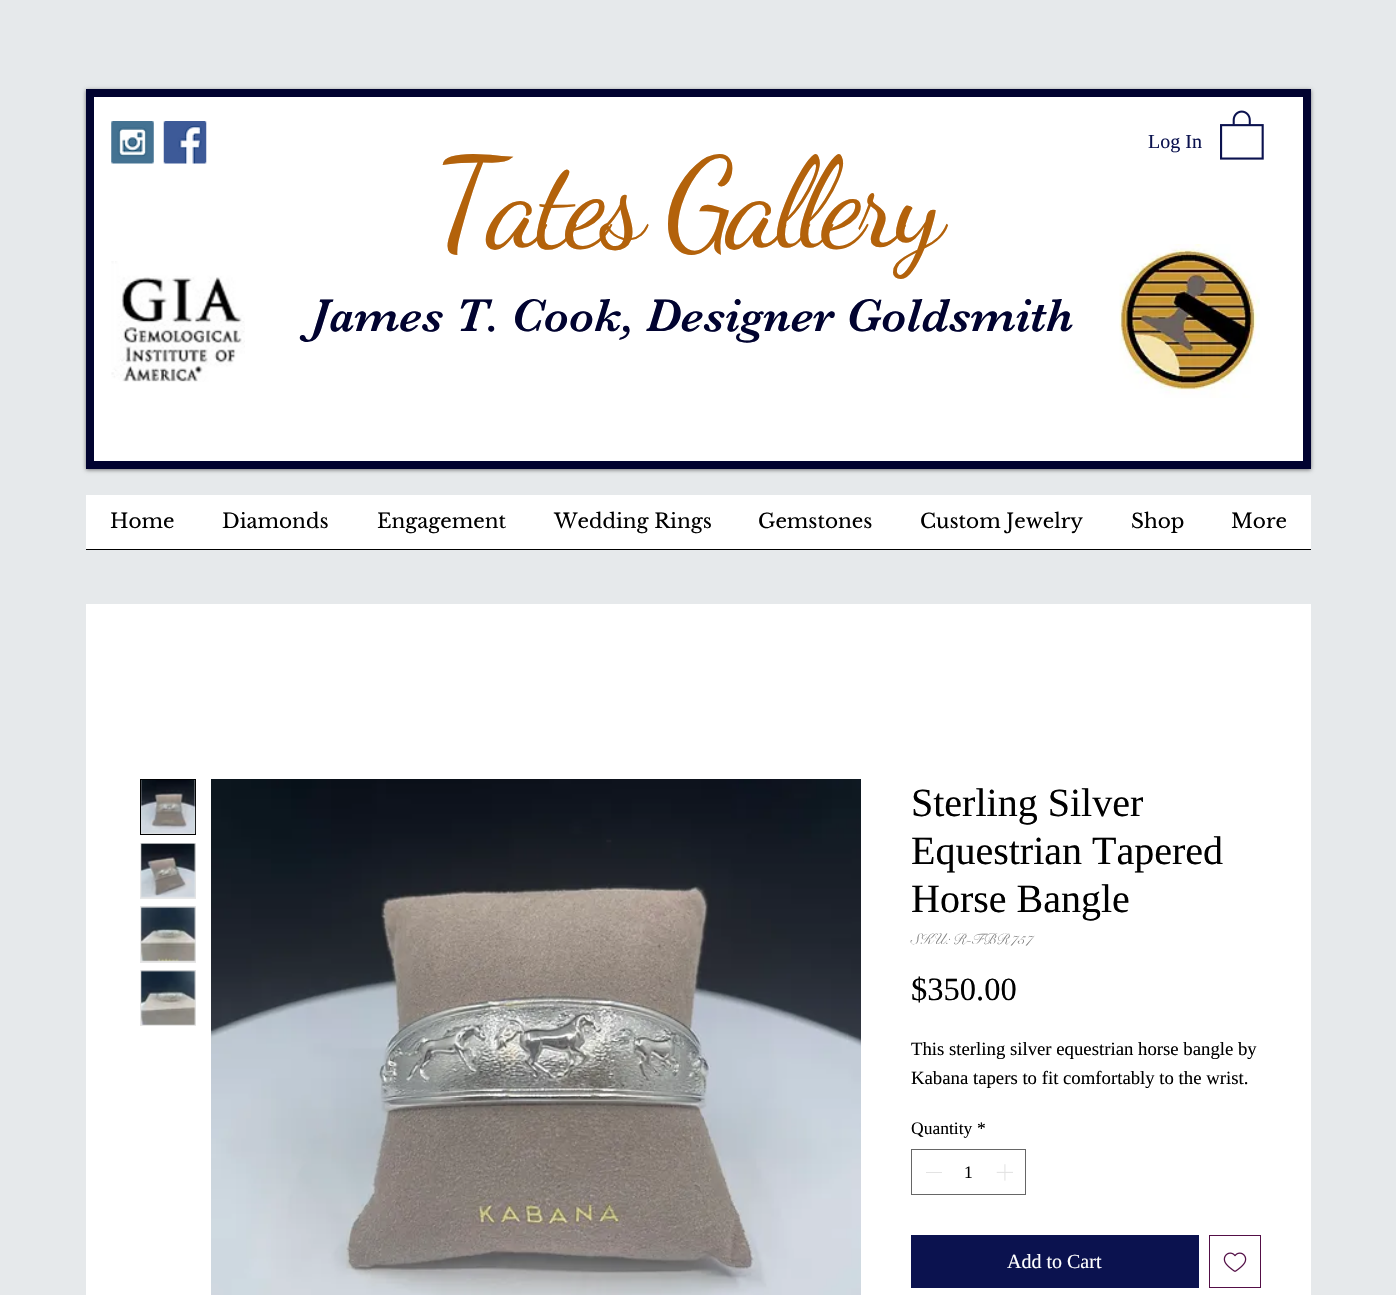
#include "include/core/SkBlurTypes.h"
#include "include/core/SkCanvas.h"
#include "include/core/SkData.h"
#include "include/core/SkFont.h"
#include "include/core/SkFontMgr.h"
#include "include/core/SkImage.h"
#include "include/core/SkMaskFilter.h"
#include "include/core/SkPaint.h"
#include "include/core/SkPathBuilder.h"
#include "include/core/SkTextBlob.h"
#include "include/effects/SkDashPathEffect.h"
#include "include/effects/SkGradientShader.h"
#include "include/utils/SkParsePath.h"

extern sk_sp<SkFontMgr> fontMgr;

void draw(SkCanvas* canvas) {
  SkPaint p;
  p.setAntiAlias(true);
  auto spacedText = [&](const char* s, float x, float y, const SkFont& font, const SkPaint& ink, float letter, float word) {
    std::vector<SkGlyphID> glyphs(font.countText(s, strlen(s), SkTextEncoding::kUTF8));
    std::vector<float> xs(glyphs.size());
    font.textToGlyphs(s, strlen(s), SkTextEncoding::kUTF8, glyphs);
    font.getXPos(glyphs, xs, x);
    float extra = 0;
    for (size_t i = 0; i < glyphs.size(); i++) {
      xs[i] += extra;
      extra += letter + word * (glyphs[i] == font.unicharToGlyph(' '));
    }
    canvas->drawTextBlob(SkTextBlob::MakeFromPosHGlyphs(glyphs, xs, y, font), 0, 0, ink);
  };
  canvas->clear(SkColorSetRGB(230, 233, 235));
  p.setColor(SkColorSetARGB(128, 0, 0, 0));
  p.setMaskFilter(SkMaskFilter::MakeBlur(kNormal_SkBlurStyle, 2));
  canvas->drawRect(SkRect::MakeLTRB(86, 90, 1311, 470), p);
  p.setMaskFilter(nullptr);
  p.setColor(SK_ColorWHITE);
  canvas->drawRect(SkRect::MakeLTRB(90, 93, 1307, 465), p);
  p.setStyle(SkPaint::kStroke_Style);
  p.setStrokeWidth(8);
  p.setColor(SkColorSetRGB(1, 3, 48));
  canvas->drawRect(SkRect::MakeLTRB(90, 93, 1307, 465), p);
  canvas->drawImageRect(SkImages::DeferredFromEncodedData(SkData::MakeFromFileName("images/1.png")), SkRect::MakeLTRB(111, 121, 154, 164), SkSamplingOptions());
  canvas->drawImageRect(SkImages::DeferredFromEncodedData(SkData::MakeFromFileName("images/2.png")), SkRect::MakeLTRB(163, 121, 207, 164), SkSamplingOptions());
  canvas->drawImageRect(SkImages::DeferredFromEncodedData(SkData::MakeFromFileName("images/3.png")), SkRect::MakeLTRB(1220, 110, 1264, 160), SkSamplingOptions());
  canvas->drawImageRect(SkImages::DeferredFromEncodedData(SkData::MakeFromFileName("images/4.png")), SkRect::MakeLTRB(111, 261, 245, 382), SkSamplingOptions());
  canvas->drawImageRect(SkImages::DeferredFromEncodedData(SkData::MakeFromFileName("images/5.png")), SkRect::MakeLTRB(1119, 244, 1260, 398), SkSamplingOptions());
  p.setStyle(SkPaint::kFill_Style);
  p.setColor(SK_ColorWHITE);
  canvas->drawRect(SkRect::MakeLTRB(86, 495, 1311, 549), p);
  p.setColor(SK_ColorBLACK);
  canvas->drawRect(SkRect::MakeLTRB(86, 549, 1311, 550), p);
  p.setColor(SK_ColorWHITE);
  canvas->drawRect(SkRect::MakeLTRB(86, 604, 1311, 1295), p);
  p.setColor(SkColorSetRGB(230, 230, 230));
  canvas->drawRect(SkRect::MakeLTRB(140.5f, 779.5f, 195.5f, 834.5f), p);
  p.setStyle(SkPaint::kStroke_Style);
  p.setStrokeWidth(1);
  p.setColor(SK_ColorBLACK);
  canvas->drawRect(SkRect::MakeLTRB(140.5f, 779.5f, 195.5f, 834.5f), p);
  canvas->drawImageRect(SkImages::DeferredFromEncodedData(SkData::MakeFromFileName("images/6.png")), SkRect::MakeLTRB(141, 779, 196, 834), SkSamplingOptions());
  p.setStyle(SkPaint::kFill_Style);
  p.setColor(SkColorSetRGB(230, 230, 230));
  canvas->drawRect(SkRect::MakeLTRB(140, 843, 196, 899), p);
  canvas->drawImageRect(SkImages::DeferredFromEncodedData(SkData::MakeFromFileName("images/7.png")), SkRect::MakeLTRB(141, 843, 196, 898), SkSamplingOptions());
  canvas->drawRect(SkRect::MakeLTRB(140, 906, 196, 963), p);
  canvas->drawImageRect(SkImages::DeferredFromEncodedData(SkData::MakeFromFileName("images/8.png")), SkRect::MakeLTRB(141, 906, 196, 962), SkSamplingOptions());
  canvas->drawRect(SkRect::MakeLTRB(140, 970, 196, 1026), p);
  canvas->drawImageRect(SkImages::DeferredFromEncodedData(SkData::MakeFromFileName("images/9.png")), SkRect::MakeLTRB(141, 970, 196, 1025), SkSamplingOptions());
  canvas->drawImageRect(SkImages::DeferredFromEncodedData(SkData::MakeFromFileName("images/10.png")), SkRect::MakeLTRB(211, 779, 861, 1295), SkSamplingOptions());
  p.setStyle(SkPaint::kStroke_Style);
  p.setColor(SkColorSetRGB(102, 102, 102));
  canvas->drawRect(SkRect::MakeLTRB(911.5f, 1149.5f, 1025.5f, 1194.5f), p);
  p.setStyle(SkPaint::kFill_Style);
  p.setColor(SkColorSetRGB(227, 227, 227));
  canvas->drawRect(SkRect::MakeLTRB(926, 1172, 942, 1173), p);
  canvas->drawImageRect(SkImages::DeferredFromEncodedData(SkData::MakeFromFileName("images/11.png")), SkRect::MakeLTRB(996, 1164, 1013, 1181), SkSamplingOptions());
  p.setColor(SkColorSetRGB(11, 18, 79));
  canvas->drawRect(SkRect::MakeLTRB(911, 1235, 1199, 1288), p);
  p.setStyle(SkPaint::kStroke_Style);
  p.setColor(SkColorSetRGB(83, 14, 70));
  canvas->drawRect(SkRect::MakeLTRB(1209.5f, 1235.5f, 1260.5f, 1287.5f), p);
  canvas->drawImageRect(SkImages::DeferredFromEncodedData(SkData::MakeFromFileName("images/12.png")), SkRect::MakeLTRB(1223, 1252, 1247, 1272), SkSamplingOptions());
  SkFont font1(fontMgr->matchFamilyStyle("Liberation Serif", SkFontStyle::Normal()), 20);
  font1.setSubpixel(true);
  p.setStyle(SkPaint::kFill_Style);
  p.setColor(SkColorSetRGB(11, 18, 79));
  canvas->drawString("Log In", 1148, 148, font1, p);
  SkFont font2(fontMgr->matchFamilyStyle("Dancing Script", SkFontStyle::Normal()), 125);
  font2.setSubpixel(true);
  p.setColor(SkColorSetRGB(179, 98, 11));
  spacedText("Tates Gallery", 434, 244, font2, p, -6.25f, 0);
  SkFont font3(fontMgr->matchFamilyStyle("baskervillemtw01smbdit", SkFontStyle::Normal()), 47.5f);
  font3.setSubpixel(true);
  p.setColor(SkColorSetRGB(1, 3, 48));
  canvas->drawString("James T. Cook, Designer Goldsmith", 311, 331, font3, p);
  SkFont font4(fontMgr->matchFamilyStyle("Libre Baskerville", SkFontStyle::Normal()), 20);
  font4.setSubpixel(true);
  p.setColor(SK_ColorBLACK);
  canvas->drawString("Home", 110, 528, font4, p);
  canvas->drawString("Diamonds", 222, 528, font4, p);
  canvas->drawString("Engagement", 377, 528, font4, p);
  canvas->drawString("Wedding Rings", 554, 528, font4, p);
  canvas->drawString("Gemstones", 758, 528, font4, p);
  canvas->drawString("Custom Jewelry", 920, 528, font4, p);
  canvas->drawString("Shop", 1131, 528, font4, p);
  canvas->drawString("More", 1231, 528, font4, p);
  SkFont font5(fontMgr->matchFamilyStyle("Liberation Serif", SkFontStyle::Normal()), 40);
  font5.setSubpixel(true);
  canvas->drawString("Sterling Silver", 911, 816, font5, p);
  canvas->drawString("Equestrian Tapered", 911, 864, font5, p);
  canvas->drawString("Horse Bangle", 911, 912, font5, p);
  SkFont font6(fontMgr->matchFamilyStyle("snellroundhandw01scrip", SkFontStyle::Normal()), 15);
  font6.setSubpixel(true);
  p.setColor(SkColorSetRGB(129, 129, 129));
  canvas->drawString("SKU: R-FBR757", 911, 944, font6, p);
  SkFont font7(fontMgr->matchFamilyStyle("Liberation Serif", SkFontStyle::Normal()), 32.5f);
  font7.setSubpixel(true);
  p.setColor(SK_ColorBLACK);
  canvas->drawString("$350.00", 911, 1000, font7, p);
  SkFont font8(fontMgr->matchFamilyStyle("Liberation Serif", SkFontStyle::Normal()), 18.75f);
  font8.setSubpixel(true);
  canvas->drawString("This sterling silver equestrian horse bangle by", 911, 1055, font8, p);
  canvas->drawString("Kabana tapers to fit comfortably to the wrist.", 911, 1084, font8, p);
  SkFont font9(fontMgr->matchFamilyStyle("Liberation Serif", SkFontStyle::Normal()), 17.5f);
  font9.setSubpixel(true);
  canvas->drawString("Quantity", 911, 1134, font9, p);
  canvas->drawString("*", 977, 1134, font9, p);
  canvas->drawString("1", 964, 1178, font9, p);
  p.setColor(SK_ColorWHITE);
  canvas->drawString("Add to Cart", 1007, 1268, font1, p);
}
